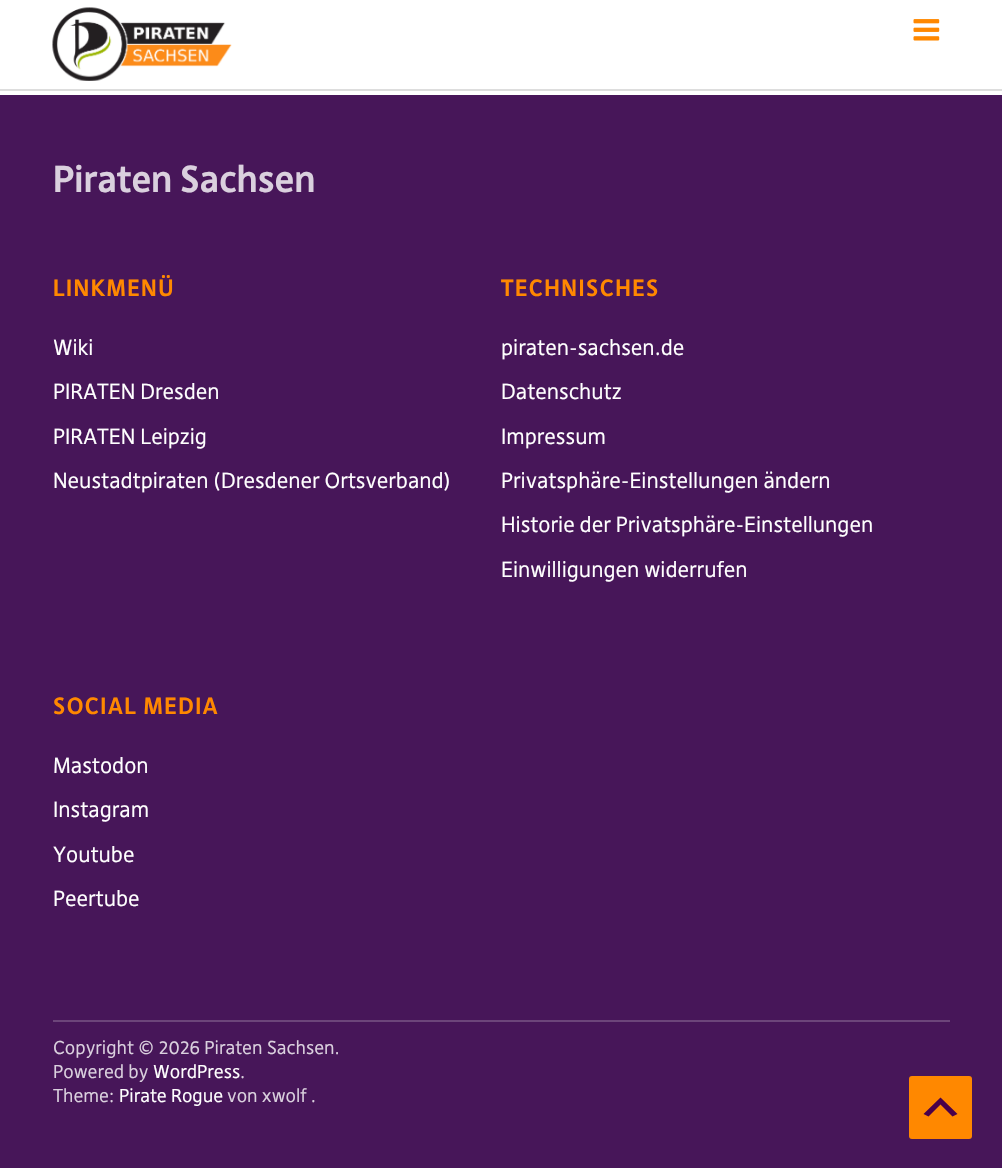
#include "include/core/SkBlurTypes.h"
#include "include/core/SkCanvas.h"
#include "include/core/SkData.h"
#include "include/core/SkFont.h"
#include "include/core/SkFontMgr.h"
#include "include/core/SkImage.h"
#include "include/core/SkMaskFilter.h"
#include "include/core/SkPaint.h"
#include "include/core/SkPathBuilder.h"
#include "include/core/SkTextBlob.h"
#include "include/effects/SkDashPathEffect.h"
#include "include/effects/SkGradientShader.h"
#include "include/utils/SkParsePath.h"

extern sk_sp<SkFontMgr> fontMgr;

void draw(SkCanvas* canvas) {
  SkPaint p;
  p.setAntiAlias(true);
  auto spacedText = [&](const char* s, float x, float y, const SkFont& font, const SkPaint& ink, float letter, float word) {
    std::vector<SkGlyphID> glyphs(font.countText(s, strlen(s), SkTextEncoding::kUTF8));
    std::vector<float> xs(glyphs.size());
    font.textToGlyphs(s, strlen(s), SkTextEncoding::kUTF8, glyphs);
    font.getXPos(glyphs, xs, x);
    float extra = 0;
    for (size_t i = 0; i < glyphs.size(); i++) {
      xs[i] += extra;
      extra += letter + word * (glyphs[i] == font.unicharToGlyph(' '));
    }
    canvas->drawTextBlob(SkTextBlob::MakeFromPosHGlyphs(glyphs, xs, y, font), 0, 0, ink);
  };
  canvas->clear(SK_ColorWHITE);
  p.setColor(SkColorSetRGB(221, 221, 221));
  canvas->drawRect(SkRect::MakeLTRB(0, 89, 1002, 91), p);
  canvas->drawImageRect(SkImages::DeferredFromEncodedData(SkData::MakeFromFileName("images/1.png")), SkRect::MakeLTRB(52, 7, 232, 81), SkSamplingOptions());
  canvas->drawImageRect(SkImages::DeferredFromEncodedData(SkData::MakeFromFileName("images/2.png")), SkRect::MakeLTRB(913, 19, 940, 41), SkSamplingOptions());
  p.setColor(SkColorSetRGB(71, 22, 89));
  canvas->drawRect(SkRect::MakeLTRB(0, 95, 1002, 1168), p);
  p.setColor(SkColorSetRGB(108, 69, 122));
  canvas->drawRect(SkRect::MakeLTRB(53, 1020, 950, 1022), p);
  p.setColor(SkColorSetRGB(255, 136, 0));
  canvas->drawRoundRect(SkRect::MakeLTRB(909, 1076, 972, 1139), 3, 3, p);
  p.setColor(SkColorSetRGB(74, 0, 74));
  canvas->drawPath(SkPathBuilder().moveTo(952.5f, 1116.5f).lineTo(940.5f, 1104.5f).lineTo(928.5f, 1116.5f).lineTo(923.5f, 1114).lineTo(940.5f, 1097.5f).lineTo(957.5f, 1114).close().detach(), p);
  SkFont font1(fontMgr->matchFamilyStyle("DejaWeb", SkFontStyle::Bold()), 36);
  font1.setSubpixel(true);
  p.setColor(SkColorSetRGB(218, 208, 222));
  canvas->drawString("Piraten Sachsen", 53, 192, font1, p);
  SkFont font2(fontMgr->matchFamilyStyle("DejaWeb", SkFontStyle::Bold()), 22.5f);
  font2.setSubpixel(true);
  p.setColor(SkColorSetRGB(255, 136, 0));
  spacedText("LINKMENÜ", 53, 296, font2, p, 1.5f, 0);
  SkFont font3(fontMgr->matchFamilyStyle("DejaWeb", SkFontStyle::Normal()), 21);
  font3.setSubpixel(true);
  p.setColor(SK_ColorWHITE);
  canvas->drawString("Wiki", 53, 355, font3, p);
  canvas->drawString("PIRATEN Dresden", 53, 399, font3, p);
  canvas->drawString("PIRATEN Leipzig", 53, 444, font3, p);
  canvas->drawString("Neustadtpiraten (Dresdener Ortsverband)", 53, 488, font3, p);
  p.setColor(SkColorSetRGB(255, 136, 0));
  spacedText("TECHNISCHES", 501, 296, font2, p, 1.5f, 0);
  p.setColor(SK_ColorWHITE);
  canvas->drawString("piraten-sachsen.de", 501, 355, font3, p);
  canvas->drawString("Datenschutz", 501, 399, font3, p);
  canvas->drawString("Impressum", 501, 444, font3, p);
  canvas->drawString("Privatsphäre-Einstellungen ändern", 501, 488, font3, p);
  canvas->drawString("Historie der Privatsphäre-Einstellungen", 501, 532, font3, p);
  canvas->drawString("Einwilligungen widerrufen", 501, 577, font3, p);
  p.setColor(SkColorSetRGB(255, 136, 0));
  spacedText("SOCIAL MEDIA", 53, 714, font2, p, 1.5f, 0);
  p.setColor(SK_ColorWHITE);
  canvas->drawString("Mastodon", 53, 773, font3, p);
  canvas->drawString("Instagram", 53, 817, font3, p);
  canvas->drawString("Youtube", 53, 862, font3, p);
  canvas->drawString("Peertube", 53, 906, font3, p);
  SkFont font4(fontMgr->matchFamilyStyle("DejaWeb", SkFontStyle::Normal()), 18);
  font4.setSubpixel(true);
  p.setColor(SkColorSetRGB(218, 208, 222));
  canvas->drawString("Copyright © 2026 Piraten Sachsen.", 53, 1054, font4, p);
  canvas->drawString("Powered by", 53, 1078, font4, p);
  p.setColor(SK_ColorWHITE);
  canvas->drawString("WordPress", 153, 1078, font4, p);
  p.setColor(SkColorSetRGB(218, 208, 222));
  canvas->drawString(".", 240, 1078, font4, p);
  canvas->drawString("Theme:", 53, 1102, font4, p);
  p.setColor(SK_ColorWHITE);
  canvas->drawString("Pirate Rogue", 119, 1102, font4, p);
  p.setColor(SkColorSetRGB(218, 208, 222));
  canvas->drawString("von xwolf .", 227, 1102, font4, p);
}
